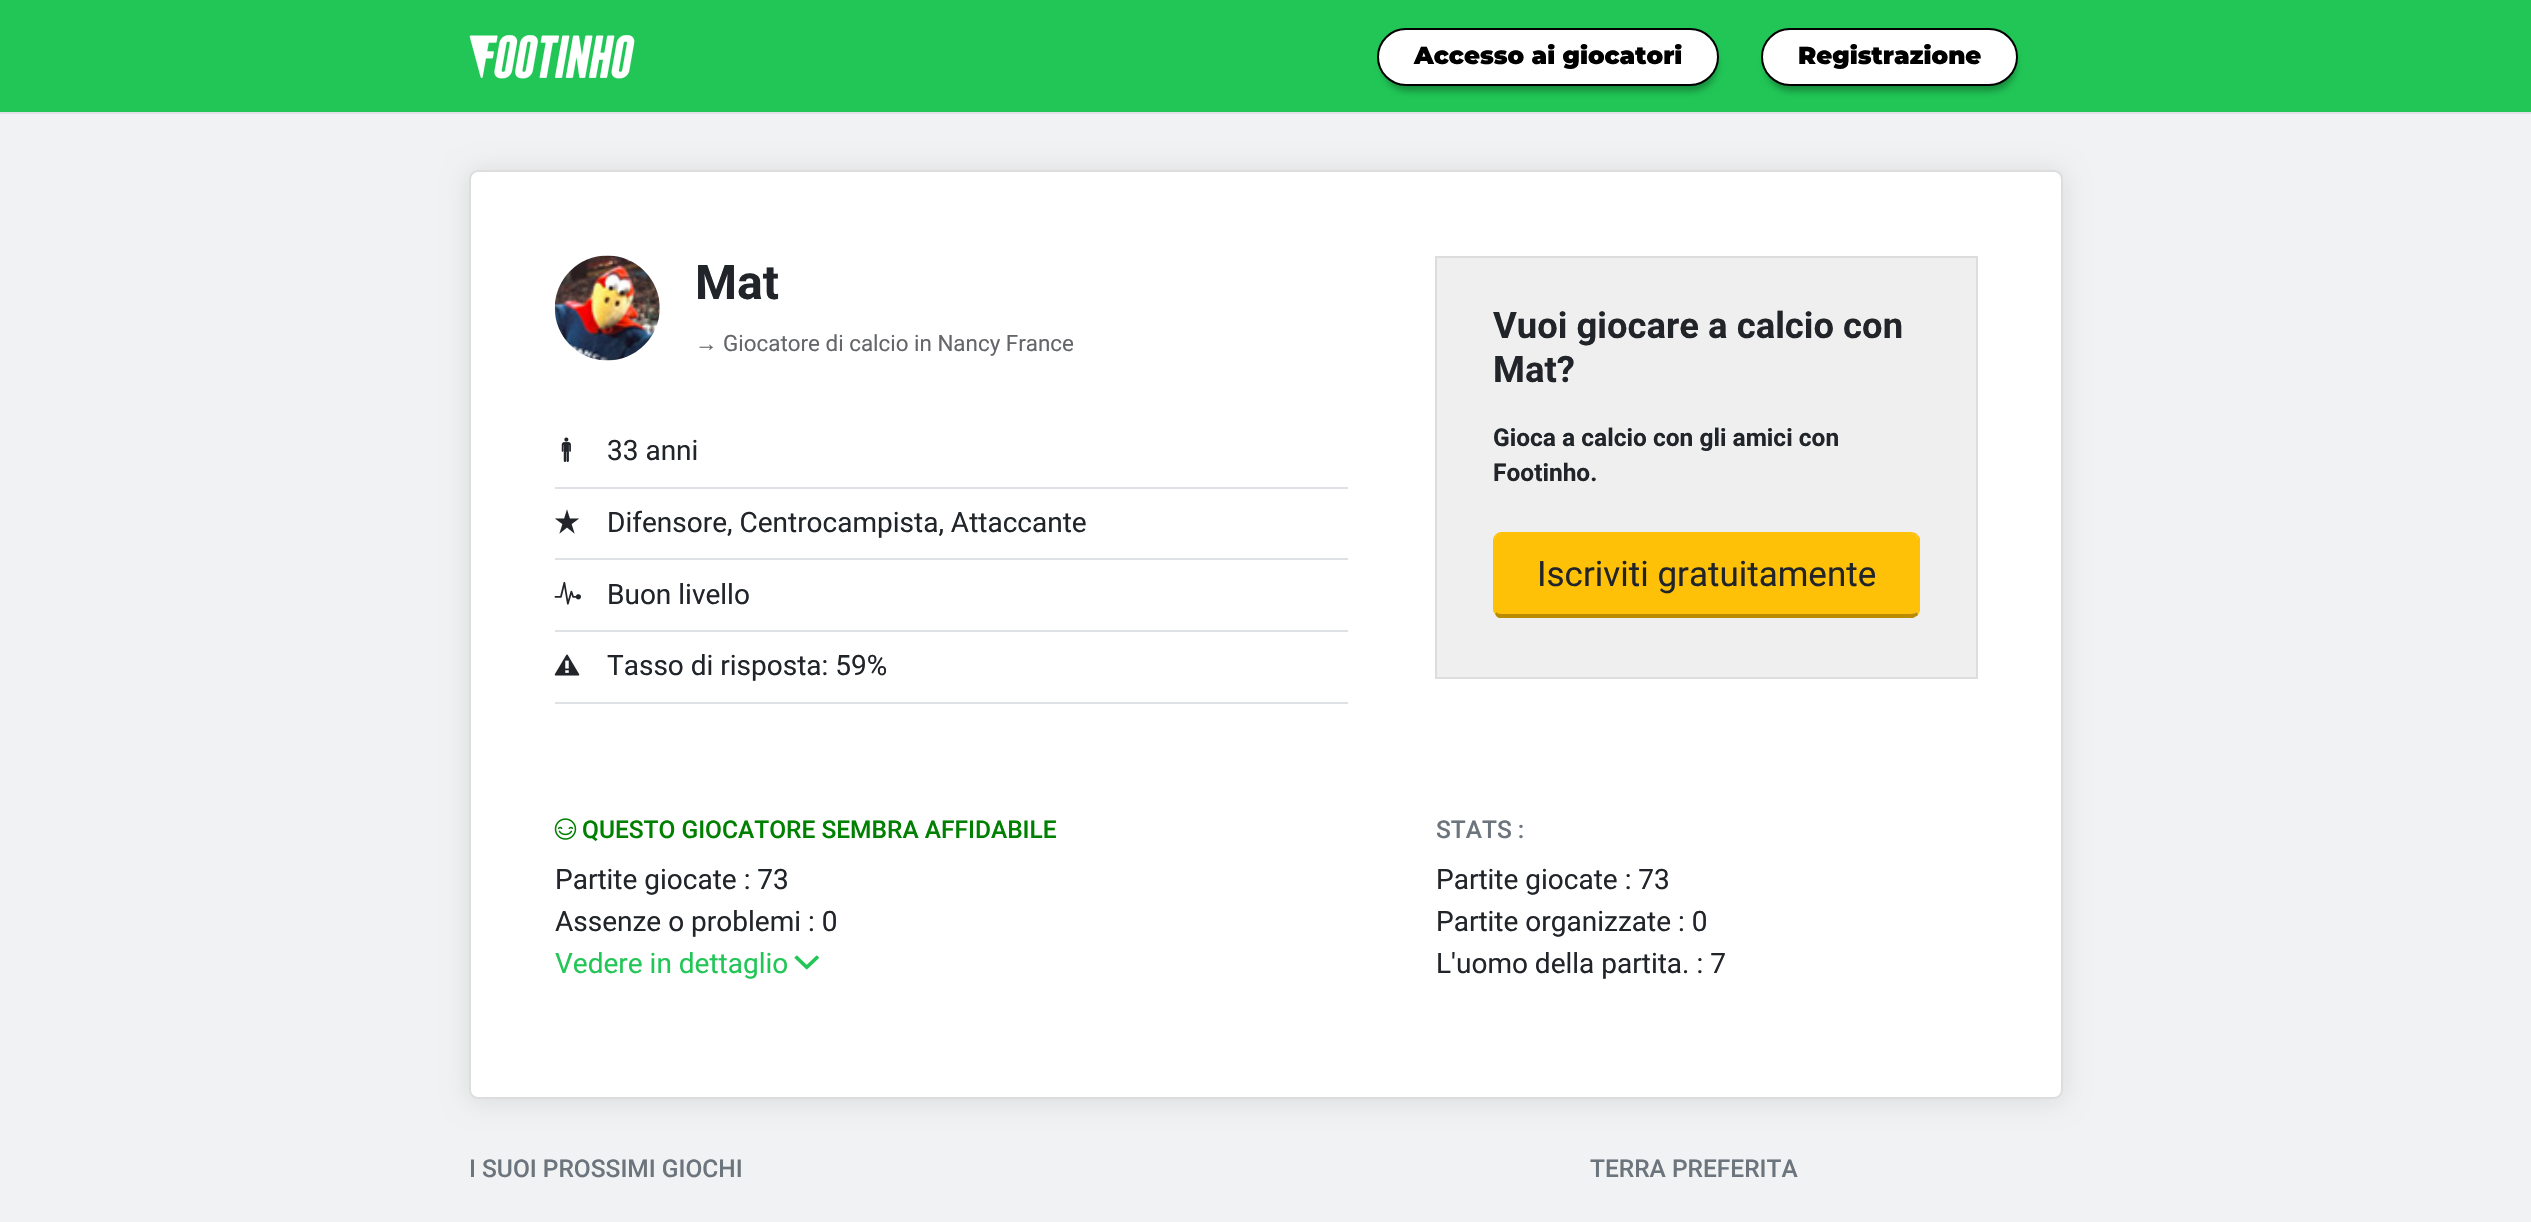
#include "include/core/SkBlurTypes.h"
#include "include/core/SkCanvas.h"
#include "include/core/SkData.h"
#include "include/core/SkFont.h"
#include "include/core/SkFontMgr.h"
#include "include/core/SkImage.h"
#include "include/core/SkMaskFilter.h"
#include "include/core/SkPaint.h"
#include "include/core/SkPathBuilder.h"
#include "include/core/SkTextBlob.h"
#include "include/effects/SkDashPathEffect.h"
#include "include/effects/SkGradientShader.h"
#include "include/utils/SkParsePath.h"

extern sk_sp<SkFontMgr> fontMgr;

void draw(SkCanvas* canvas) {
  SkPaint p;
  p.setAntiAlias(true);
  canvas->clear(SkColorSetRGB(241, 242, 243));
  p.setColor(SkColorSetRGB(33, 198, 86));
  canvas->drawRect(SkRect::MakeLTRB(0, 0, 2531, 112), p);
  p.setColor(SkColorSetRGB(222, 226, 230));
  canvas->drawRect(SkRect::MakeLTRB(0, 112, 2531, 114), p);
  canvas->drawImageRect(SkImages::DeferredFromEncodedData(SkData::MakeFromFileName("images/1.png")), SkRect::MakeLTRB(469, 35, 635, 79), SkSamplingOptions());
  p.setColor(SkColorSetARGB(79, 0, 0, 0));
  p.setMaskFilter(SkMaskFilter::MakeBlur(kNormal_SkBlurStyle, 3.5f));
  canvas->drawRoundRect(SkRect::MakeLTRB(1383, 40, 1717, 91), 25.5f, 25.5f, p);
  p.setMaskFilter(nullptr);
  p.setColor(SK_ColorWHITE);
  canvas->drawRoundRect(SkRect::MakeLTRB(1378, 29, 1718, 85), 28, 28, p);
  p.setStyle(SkPaint::kStroke_Style);
  p.setStrokeWidth(2);
  p.setColor(SK_ColorBLACK);
  canvas->drawRoundRect(SkRect::MakeLTRB(1378, 29, 1718, 85), 28, 28, p);
  p.setStyle(SkPaint::kFill_Style);
  p.setColor(SkColorSetARGB(79, 0, 0, 0));
  p.setMaskFilter(SkMaskFilter::MakeBlur(kNormal_SkBlurStyle, 3.5f));
  canvas->drawRoundRect(SkRect::MakeLTRB(1766, 40, 2016, 91), 25.5f, 25.5f, p);
  p.setMaskFilter(nullptr);
  p.setColor(SK_ColorWHITE);
  canvas->drawRoundRect(SkRect::MakeLTRB(1762, 29, 2017, 85), 28, 28, p);
  p.setStyle(SkPaint::kStroke_Style);
  p.setColor(SK_ColorBLACK);
  canvas->drawRoundRect(SkRect::MakeLTRB(1762, 29, 2017, 85), 28, 28, p);
  p.setStyle(SkPaint::kFill_Style);
  p.setColor(SkColorSetARGB(26, 0, 0, 0));
  p.setMaskFilter(SkMaskFilter::MakeBlur(kNormal_SkBlurStyle, 13));
  canvas->drawRoundRect(SkRect::MakeLTRB(469, 172, 2063, 1101), 9, 9, p);
  p.setMaskFilter(nullptr);
  p.setColor(SK_ColorWHITE);
  canvas->drawRoundRect(SkRect::MakeLTRB(470, 171, 2062, 1098), 8, 8, p);
  p.setStyle(SkPaint::kStroke_Style);
  p.setColor(SkColorSetRGB(221, 221, 221));
  canvas->drawRoundRect(SkRect::MakeLTRB(470, 171, 2062, 1098), 8, 8, p);
  canvas->drawImageRect(SkImages::DeferredFromEncodedData(SkData::MakeFromFileName("images/2.png")), SkRect::MakeLTRB(554, 255, 660, 361), SkSamplingOptions());
  p.setStyle(SkPaint::kFill_Style);
  p.setColor(SkColorSetRGB(222, 226, 230));
  canvas->drawRect(SkRect::MakeLTRB(555, 487, 1348, 489), p);
  canvas->drawImageRect(SkImages::DeferredFromEncodedData(SkData::MakeFromFileName("images/3.png")), SkRect::MakeLTRB(561, 437, 571, 462), SkSamplingOptions());
  canvas->drawRect(SkRect::MakeLTRB(555, 558, 1348, 560), p);
  canvas->drawImageRect(SkImages::DeferredFromEncodedData(SkData::MakeFromFileName("images/4.png")), SkRect::MakeLTRB(555, 509, 579, 534), SkSamplingOptions());
  canvas->drawRect(SkRect::MakeLTRB(555, 630, 1348, 632), p);
  canvas->drawImageRect(SkImages::DeferredFromEncodedData(SkData::MakeFromFileName("images/5.png")), SkRect::MakeLTRB(554, 581, 581, 605), SkSamplingOptions());
  canvas->drawRect(SkRect::MakeLTRB(555, 702, 1348, 704), p);
  canvas->drawImageRect(SkImages::DeferredFromEncodedData(SkData::MakeFromFileName("images/6.png")), SkRect::MakeLTRB(554, 654, 580, 676), SkSamplingOptions());
  p.setColor(SkColorSetRGB(239, 239, 239));
  canvas->drawRect(SkRect::MakeLTRB(1436, 257, 1977, 678), p);
  p.setStyle(SkPaint::kStroke_Style);
  p.setColor(SkColorSetRGB(221, 221, 221));
  canvas->drawRect(SkRect::MakeLTRB(1436, 257, 1977, 678), p);
  p.setStyle(SkPaint::kFill_Style);
  p.setColor(SkColorSetRGB(255, 193, 7));
  canvas->drawPath(SkPathBuilder().moveTo(1501, 534).lineTo(1911, 534).cubicTo(1915, 534, 1918, 537, 1918, 540).lineTo(1918, 609).cubicTo(1918, 612, 1915, 614, 1911, 614).lineTo(1501, 614).cubicTo(1497, 614, 1494, 612, 1494, 609).lineTo(1494, 540).cubicTo(1494, 537, 1497, 534, 1501, 534).close().detach(), p);
  canvas->drawPath(SkPathBuilder().moveTo(1501, 532).cubicTo(1499, 532, 1497, 533, 1495, 535).lineTo(1496, 536).lineTo(1500, 534).lineTo(1911, 534).cubicTo(1913, 534, 1915, 535, 1916, 536).lineTo(1917, 534).cubicTo(1916, 533, 1913, 532, 1911, 532).close().detach(), p);
  canvas->drawPath(SkPathBuilder().moveTo(1920, 611).lineTo(1918, 615).lineTo(1917, 612).lineTo(1918, 609).lineTo(1918, 539).cubicTo(1918, 538, 1917, 537, 1916, 536).lineTo(1917, 534).lineTo(1920, 538).close().detach(), p);
  p.setColor(SkColorSetRGB(186, 139, 0));
  canvas->drawPath(SkPathBuilder().moveTo(1499, 618).cubicTo(1497, 617, 1496, 616, 1495, 614).lineTo(1496, 612).cubicTo(1497, 613, 1499, 614, 1501, 614).lineTo(1911, 614).cubicTo(1913, 614, 1916, 613, 1917, 612).lineTo(1918, 615).cubicTo(1917, 616, 1915, 617, 1913, 618).close().detach(), p);
  p.setColor(SkColorSetRGB(255, 193, 7));
  canvas->drawPath(SkPathBuilder().moveTo(1495, 535).cubicTo(1494, 536, 1493, 538, 1493, 540).lineTo(1493, 609).cubicTo(1493, 611, 1494, 613, 1495, 614).lineTo(1496, 612).lineTo(1494, 609).lineTo(1494, 539).cubicTo(1494, 538, 1495, 537, 1496, 536).close().detach(), p);
  canvas->drawImageRect(SkImages::DeferredFromEncodedData(SkData::MakeFromFileName("images/7.png")), SkRect::MakeLTRB(554, 818, 577, 840), SkSamplingOptions());
  canvas->drawImageRect(SkImages::DeferredFromEncodedData(SkData::MakeFromFileName("images/8.png")), SkRect::MakeLTRB(794, 955, 819, 970), SkSamplingOptions());
  SkFont font1(fontMgr->matchFamilyStyle("Montserrat", SkFontStyle(900, SkFontStyle::kNormal_Width, SkFontStyle::kUpright_Slant)), 24.5f);
  font1.setSubpixel(true);
  p.setColor(SK_ColorBLACK);
  canvas->drawString("Accesso ai giocatori", 1414, 64, font1, p);
  canvas->drawString("Registrazione", 1798, 64, font1, p);
  SkFont font2(fontMgr->matchFamilyStyle("Roboto", SkFontStyle::Bold()), 48);
  font2.setSubpixel(true);
  p.setColor(SkColorSetRGB(33, 37, 41));
  canvas->drawString("Mat", 695, 299, font2, p);
  SkFont font3(fontMgr->matchFamilyStyle("Liberation Sans", SkFontStyle::Normal()), 22.4f);
  font3.setSubpixel(true);
  p.setColor(SkColorSetRGB(100, 102, 105));
  canvas->drawString("→", 695, 351, font3, p);
  SkFont font4(fontMgr->matchFamilyStyle("Roboto", SkFontStyle::Normal()), 22.4f);
  font4.setSubpixel(true);
  canvas->drawString("Giocatore di calcio in Nancy France", 723, 351, font4, p);
  SkFont font5(fontMgr->matchFamilyStyle("Roboto", SkFontStyle::Normal()), 28);
  font5.setSubpixel(true);
  p.setColor(SkColorSetRGB(33, 37, 41));
  canvas->drawString("33 anni", 607, 460, font5, p);
  canvas->drawString("Difensore, Centrocampista, Attaccante", 607, 532, font5, p);
  canvas->drawString("Buon livello", 607, 604, font5, p);
  canvas->drawString("Tasso di risposta: 59%", 607, 675, font5, p);
  SkFont font6(fontMgr->matchFamilyStyle("Roboto", SkFontStyle::Bold()), 36.4f);
  font6.setSubpixel(true);
  canvas->drawString("Vuoi giocare a calcio con", 1493, 338, font6, p);
  canvas->drawString("Mat?", 1493, 382, font6, p);
  SkFont font7(fontMgr->matchFamilyStyle("Roboto", SkFontStyle::Bold()), 24.5f);
  font7.setSubpixel(true);
  canvas->drawString("Gioca a calcio con gli amici con", 1493, 446, font7, p);
  canvas->drawString("Footinho.", 1493, 481, font7, p);
  SkFont font8(fontMgr->matchFamilyStyle("Roboto", SkFontStyle::Normal()), 35);
  font8.setSubpixel(true);
  canvas->drawString("Iscriviti gratuitamente", 1537, 586, font8, p);
  SkFont font9(fontMgr->matchFamilyStyle("Roboto", SkFontStyle(500, SkFontStyle::kNormal_Width, SkFontStyle::kUpright_Slant)), 24.5f);
  font9.setSubpixel(true);
  p.setColor(SkColorSetRGB(0, 128, 0));
  canvas->drawString("QUESTO GIOCATORE SEMBRA AFFIDABILE", 582, 838, font9, p);
  p.setColor(SkColorSetRGB(33, 37, 41));
  canvas->drawString("Partite giocate : 73", 555, 889, font5, p);
  canvas->drawString("Assenze o problemi : 0", 555, 931, font5, p);
  p.setColor(SkColorSetRGB(33, 198, 86));
  canvas->drawString("Vedere in dettaglio", 555, 973, font5, p);
  p.setColor(SkColorSetRGB(108, 117, 125));
  canvas->drawString("STATS :", 1436, 838, font9, p);
  p.setColor(SkColorSetRGB(33, 37, 41));
  canvas->drawString("Partite giocate : 73", 1436, 889, font5, p);
  canvas->drawString("Partite organizzate : 0", 1436, 931, font5, p);
  canvas->drawString("L'uomo della partita. : 7", 1436, 973, font5, p);
  p.setColor(SkColorSetRGB(108, 117, 125));
  canvas->drawString("I SUOI PROSSIMI GIOCHI", 469, 1177, font9, p);
  canvas->drawString("TERRA PREFERITA", 1590, 1177, font9, p);
}
